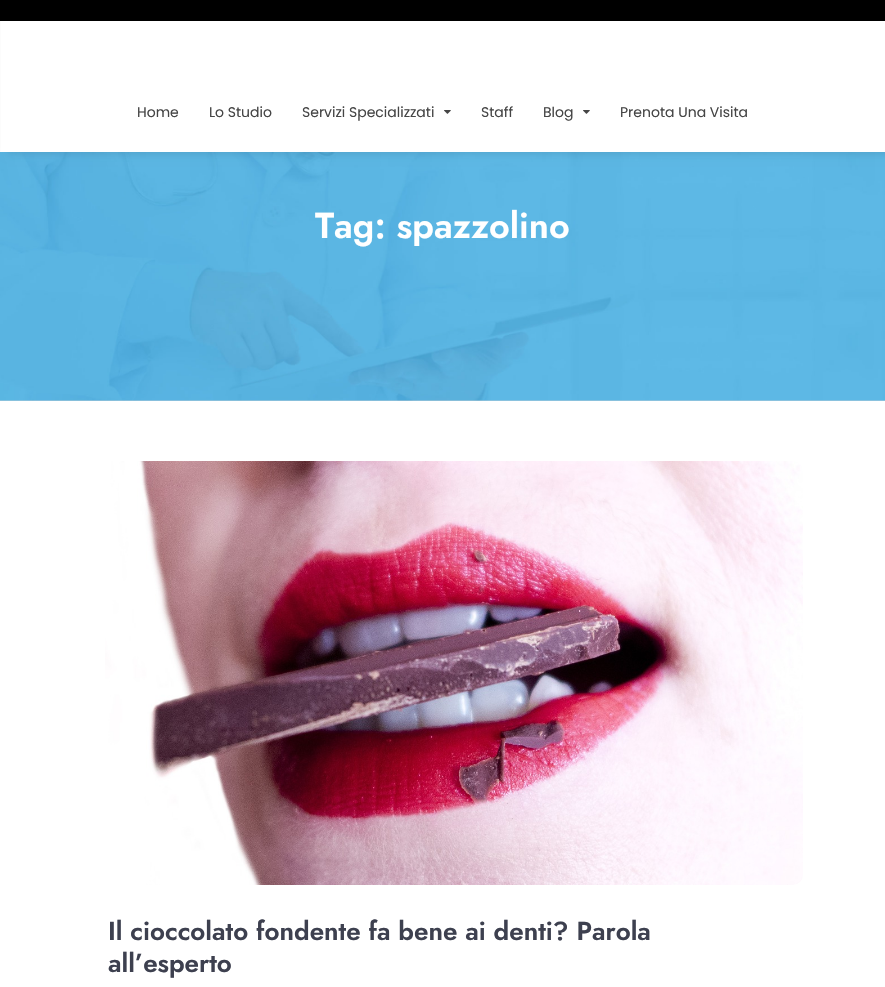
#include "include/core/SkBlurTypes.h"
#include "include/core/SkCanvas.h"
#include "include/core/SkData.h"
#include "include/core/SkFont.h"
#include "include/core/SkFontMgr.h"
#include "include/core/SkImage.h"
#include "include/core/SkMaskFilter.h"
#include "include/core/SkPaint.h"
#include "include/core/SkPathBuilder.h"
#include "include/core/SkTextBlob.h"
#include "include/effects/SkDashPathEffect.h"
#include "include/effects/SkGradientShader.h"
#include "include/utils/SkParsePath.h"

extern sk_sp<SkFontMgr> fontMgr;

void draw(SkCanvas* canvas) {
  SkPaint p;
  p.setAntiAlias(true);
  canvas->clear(SK_ColorWHITE);
  canvas->drawImageRect(SkImages::DeferredFromEncodedData(SkData::MakeFromFileName("images/2.png")), SkRect::MakeLTRB(0, 152, 885, 401), SkSamplingOptions());
  p.setColor(SkColorSetARGB(38, 0, 0, 0));
  p.setMaskFilter(SkMaskFilter::MakeBlur(kNormal_SkBlurStyle, 5));
  canvas->drawRect(SkRect::MakeLTRB(8, 0, 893, 152), p);
  p.setMaskFilter(nullptr);
  p.setColor(SK_ColorBLACK);
  canvas->drawRect(SkRect::MakeLTRB(0, 0, 885, 21), p);
  p.setColor(SK_ColorWHITE);
  canvas->drawRect(SkRect::MakeLTRB(1, 21, 885, 152), p);
  canvas->drawImageRect(SkImages::DeferredFromEncodedData(SkData::MakeFromFileName("images/1.png")), SkRect::MakeLTRB(444, 110, 451, 114), SkSamplingOptions());
  canvas->drawImageRect(SkImages::DeferredFromEncodedData(SkData::MakeFromFileName("images/1.png")), SkRect::MakeLTRB(583, 110, 590, 114), SkSamplingOptions());
  p.setColor(SkColorSetARGB(102, 205, 209, 212));
  canvas->drawRect(SkRect::MakeLTRB(0, 400, 885, 401), p);
  canvas->drawImageRect(SkImages::DeferredFromEncodedData(SkData::MakeFromFileName("images/3.png")), SkRect::MakeLTRB(105, 461, 803, 885), SkSamplingOptions());
  SkFont font1(fontMgr->matchFamilyStyle("Poppins", SkFontStyle::Normal()), 14);
  font1.setSubpixel(true);
  p.setColor(SkColorSetRGB(69, 69, 69));
  canvas->drawString("Home", 137, 117, font1, p);
  canvas->drawString("Lo Studio", 209, 117, font1, p);
  canvas->drawString("Servizi Specializzati", 302, 117, font1, p);
  canvas->drawString("Staff", 481, 117, font1, p);
  canvas->drawString("Blog", 543, 117, font1, p);
  canvas->drawString("Prenota Una Visita", 620, 117, font1, p);
  SkFont font2(fontMgr->matchFamilyStyle("Jost", SkFontStyle(600, SkFontStyle::kNormal_Width, SkFontStyle::kUpright_Slant)), 36);
  font2.setSubpixel(true);
  p.setColor(SK_ColorWHITE);
  canvas->drawString("Tag: spazzolino", 315, 238, font2, p);
  SkFont font3(fontMgr->matchFamilyStyle("Jost", SkFontStyle(600, SkFontStyle::kNormal_Width, SkFontStyle::kUpright_Slant)), 26);
  font3.setSubpixel(true);
  p.setColor(SkColorSetRGB(61, 64, 79));
  canvas->drawString("Il cioccolato fondente fa bene ai denti? Parola", 108, 940, font3, p);
  canvas->drawString("all’esperto", 108, 972, font3, p);
}
